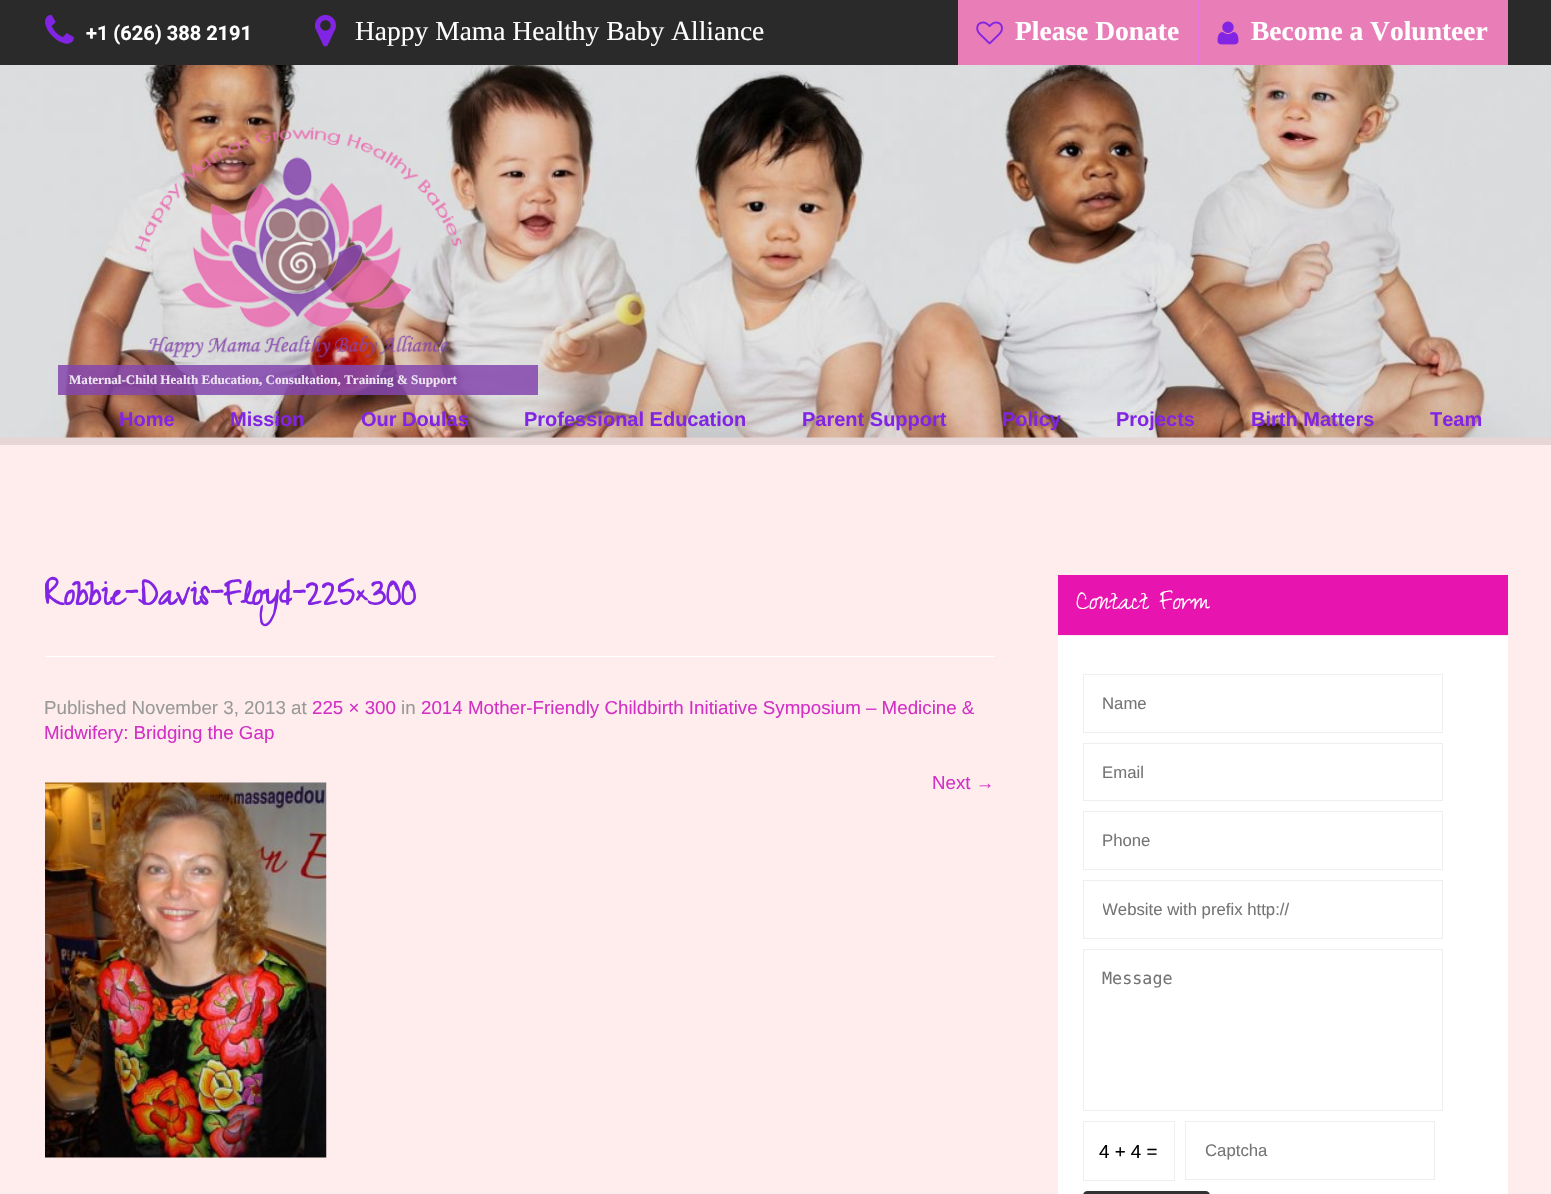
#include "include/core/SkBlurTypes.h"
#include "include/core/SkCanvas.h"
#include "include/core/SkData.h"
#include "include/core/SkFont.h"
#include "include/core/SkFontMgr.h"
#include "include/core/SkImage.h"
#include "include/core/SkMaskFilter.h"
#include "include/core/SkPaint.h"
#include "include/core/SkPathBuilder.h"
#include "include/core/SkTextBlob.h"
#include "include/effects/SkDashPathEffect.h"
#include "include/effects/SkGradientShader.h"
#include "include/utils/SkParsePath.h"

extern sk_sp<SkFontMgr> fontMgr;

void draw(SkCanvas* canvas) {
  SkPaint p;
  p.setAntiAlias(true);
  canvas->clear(SkColorSetRGB(255, 237, 237));
  p.setColor(SkColorSetRGB(42, 42, 43));
  canvas->drawRect(SkRect::MakeLTRB(0, 0, 1551, 65), p);
  canvas->drawImageRect(SkImages::DeferredFromEncodedData(SkData::MakeFromFileName("images/1.png")), SkRect::MakeLTRB(45, 15, 74, 44), SkSamplingOptions());
  canvas->drawImageRect(SkImages::DeferredFromEncodedData(SkData::MakeFromFileName("images/2.png")), SkRect::MakeLTRB(315, 14, 336, 47), SkSamplingOptions());
  p.setColor(SkColorSetRGB(233, 125, 184));
  canvas->drawRect(SkRect::MakeLTRB(958, 0, 1508, 65), p);
  p.setColor(SkColorSetRGB(232, 116, 230));
  canvas->drawRect(SkRect::MakeLTRB(1198, 0, 1199, 65), p);
  canvas->drawImageRect(SkImages::DeferredFromEncodedData(SkData::MakeFromFileName("images/3.png")), SkRect::MakeLTRB(976, 21, 1003, 45), SkSamplingOptions());
  canvas->drawImageRect(SkImages::DeferredFromEncodedData(SkData::MakeFromFileName("images/4.png")), SkRect::MakeLTRB(1217, 21, 1239, 45), SkSamplingOptions());
  canvas->drawImageRect(SkImages::DeferredFromEncodedData(SkData::MakeFromFileName("images/6.png")), SkRect::MakeLTRB(0, 65, 1551, 438), SkSamplingOptions());
  p.setColor(SkColorSetARGB(26, 0, 0, 0));
  canvas->drawRect(SkRect::MakeLTRB(0, 65, 1551, 445), p);
  canvas->drawImageRect(SkImages::DeferredFromEncodedData(SkData::MakeFromFileName("images/5.png")), SkRect::MakeLTRB(134, 127, 462, 358), SkSamplingOptions());
  p.setColor(SkColorSetARGB(217, 132, 69, 173));
  canvas->drawRect(SkRect::MakeLTRB(58, 365, 538, 395), p);
  p.setColor(SK_ColorWHITE);
  canvas->drawRect(SkRect::MakeLTRB(45, 656, 995, 657), p);
  canvas->drawImageRect(SkImages::DeferredFromEncodedData(SkData::MakeFromFileName("images/7.png")), SkRect::MakeLTRB(45, 782, 327, 1158), SkSamplingOptions());
  p.setColor(SkColorSetRGB(232, 20, 175));
  canvas->drawRect(SkRect::MakeLTRB(1058, 575, 1508, 635), p);
  p.setColor(SK_ColorWHITE);
  canvas->drawRect(SkRect::MakeLTRB(1058, 636, 1508, 1194), p);
  p.setStyle(SkPaint::kStroke_Style);
  p.setStrokeWidth(1);
  p.setColor(SkColorSetRGB(238, 238, 238));
  canvas->drawRect(SkRect::MakeLTRB(1083.5f, 674.5f, 1442.5f, 732.5f), p);
  canvas->drawRect(SkRect::MakeLTRB(1083.5f, 743.5f, 1442.5f, 800.5f), p);
  canvas->drawRect(SkRect::MakeLTRB(1083.5f, 811.5f, 1442.5f, 869.5f), p);
  canvas->drawRect(SkRect::MakeLTRB(1083.5f, 880.5f, 1442.5f, 938.5f), p);
  canvas->drawRect(SkRect::MakeLTRB(1083.5f, 949.5f, 1442.5f, 1110.5f), p);
  canvas->drawRect(SkRect::MakeLTRB(1083.5f, 1121.5f, 1174.5f, 1180.5f), p);
  canvas->drawRect(SkRect::MakeLTRB(1185.5f, 1121.5f, 1434.5f, 1179.5f), p);
  p.setStyle(SkPaint::kFill_Style);
  p.setColor(SkColorSetRGB(50, 50, 50));
  canvas->drawRoundRect(SkRect::MakeLTRB(1083, 1191, 1210, 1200), 6, 6, p);
  SkFont font1(fontMgr->matchFamilyStyle("Roboto", SkFontStyle::Bold()), 20);
  font1.setSubpixel(true);
  p.setColor(SK_ColorWHITE);
  canvas->drawString("+1 (626) 388 2191", 86, 40, font1, p);
  SkFont font2(fontMgr->matchFamilyStyle("Liberation Serif", SkFontStyle::Normal()), 27.5f);
  font2.setSubpixel(true);
  canvas->drawString("Happy Mama Healthy Baby Alliance", 355, 40, font2, p);
  SkFont font3(fontMgr->matchFamilyStyle("Liberation Serif", SkFontStyle::Bold()), 27.5f);
  font3.setSubpixel(true);
  canvas->drawString("Please Donate", 1015, 40, font3, p);
  canvas->drawString("Become a Volunteer", 1251, 40, font3, p);
  SkFont font4(fontMgr->matchFamilyStyle("Liberation Serif", SkFontStyle::Bold()), 13.1f);
  font4.setSubpixel(true);
  p.setColor(SkColorSetRGB(237, 228, 241));
  canvas->drawString("Maternal-Child Health Education, Consultation, Training & Support", 69, 384, font4, p);
  SkFont font5(fontMgr->matchFamilyStyle("Liberation Sans", SkFontStyle::Bold()), 20);
  font5.setSubpixel(true);
  p.setColor(SkColorSetRGB(130, 36, 227));
  canvas->drawString("Home", 119, 426, font5, p);
  canvas->drawString("Mission", 230, 426, font5, p);
  canvas->drawString("Our Doulas", 361, 426, font5, p);
  canvas->drawString("Professional Education", 524, 426, font5, p);
  canvas->drawString("Parent Support", 802, 426, font5, p);
  canvas->drawString("Policy", 1002, 426, font5, p);
  canvas->drawString("Projects", 1116, 426, font5, p);
  canvas->drawString("Birth Matters", 1251, 426, font5, p);
  canvas->drawString("Team", 1430, 426, font5, p);
  SkFont font6(fontMgr->matchFamilyStyle("Zeyada", SkFontStyle::Bold()), 40);
  font6.setSubpixel(true);
  canvas->drawString("Robbie-Davis-Floyd-225×300", 44, 605, font6, p);
  SkFont font7(fontMgr->matchFamilyStyle("Liberation Sans", SkFontStyle::Normal()), 18.75f);
  font7.setSubpixel(true);
  p.setColor(SkColorSetRGB(153, 153, 153));
  canvas->drawString("Published November 3, 2013 at", 44, 714, font7, p);
  p.setColor(SkColorSetRGB(211, 48, 198));
  canvas->drawString("225 × 300", 312, 714, font7, p);
  p.setColor(SkColorSetRGB(153, 153, 153));
  canvas->drawString("in", 401, 714, font7, p);
  p.setColor(SkColorSetRGB(211, 48, 198));
  canvas->drawString("2014 Mother-Friendly Childbirth Initiative Symposium – Medicine &", 421, 714, font7, p);
  canvas->drawString("Midwifery: Bridging the Gap", 44, 739, font7, p);
  canvas->drawString("Next →", 932, 789, font7, p);
  SkFont font8(fontMgr->matchFamilyStyle("Zeyada", SkFontStyle::Normal()), 30);
  font8.setSubpixel(true);
  p.setColor(SK_ColorWHITE);
  canvas->drawString("Contact Form", 1076, 609, font8, p);
  SkFont font9(fontMgr->matchFamilyStyle("Liberation Sans", SkFontStyle::Normal()), 16.75f);
  font9.setSubpixel(true);
  p.setColor(SkColorSetRGB(117, 117, 117));
  canvas->drawString("Name", 1102, 709, font9, p);
  canvas->drawString("Email", 1102, 778, font9, p);
  canvas->drawString("Phone", 1102, 846, font9, p);
  canvas->save();
  canvas->clipRect(SkRect::MakeLTRB(1103, 900, 1423, 919));
  canvas->drawString("Website with prefix http://", 1102, 915, font9, p);
  canvas->restore();
  SkFont font10(fontMgr->matchFamilyStyle("DejaVu Sans Mono", SkFontStyle::Normal()), 16.75f);
  font10.setSubpixel(true);
  canvas->drawString("Message", 1102, 984, font10, p);
  p.setColor(SK_ColorBLACK);
  canvas->drawString("4 + 4 =", 1099, 1158, font7, p);
  p.setColor(SkColorSetRGB(117, 117, 117));
  canvas->drawString("Captcha", 1205, 1156, font9, p);
}
